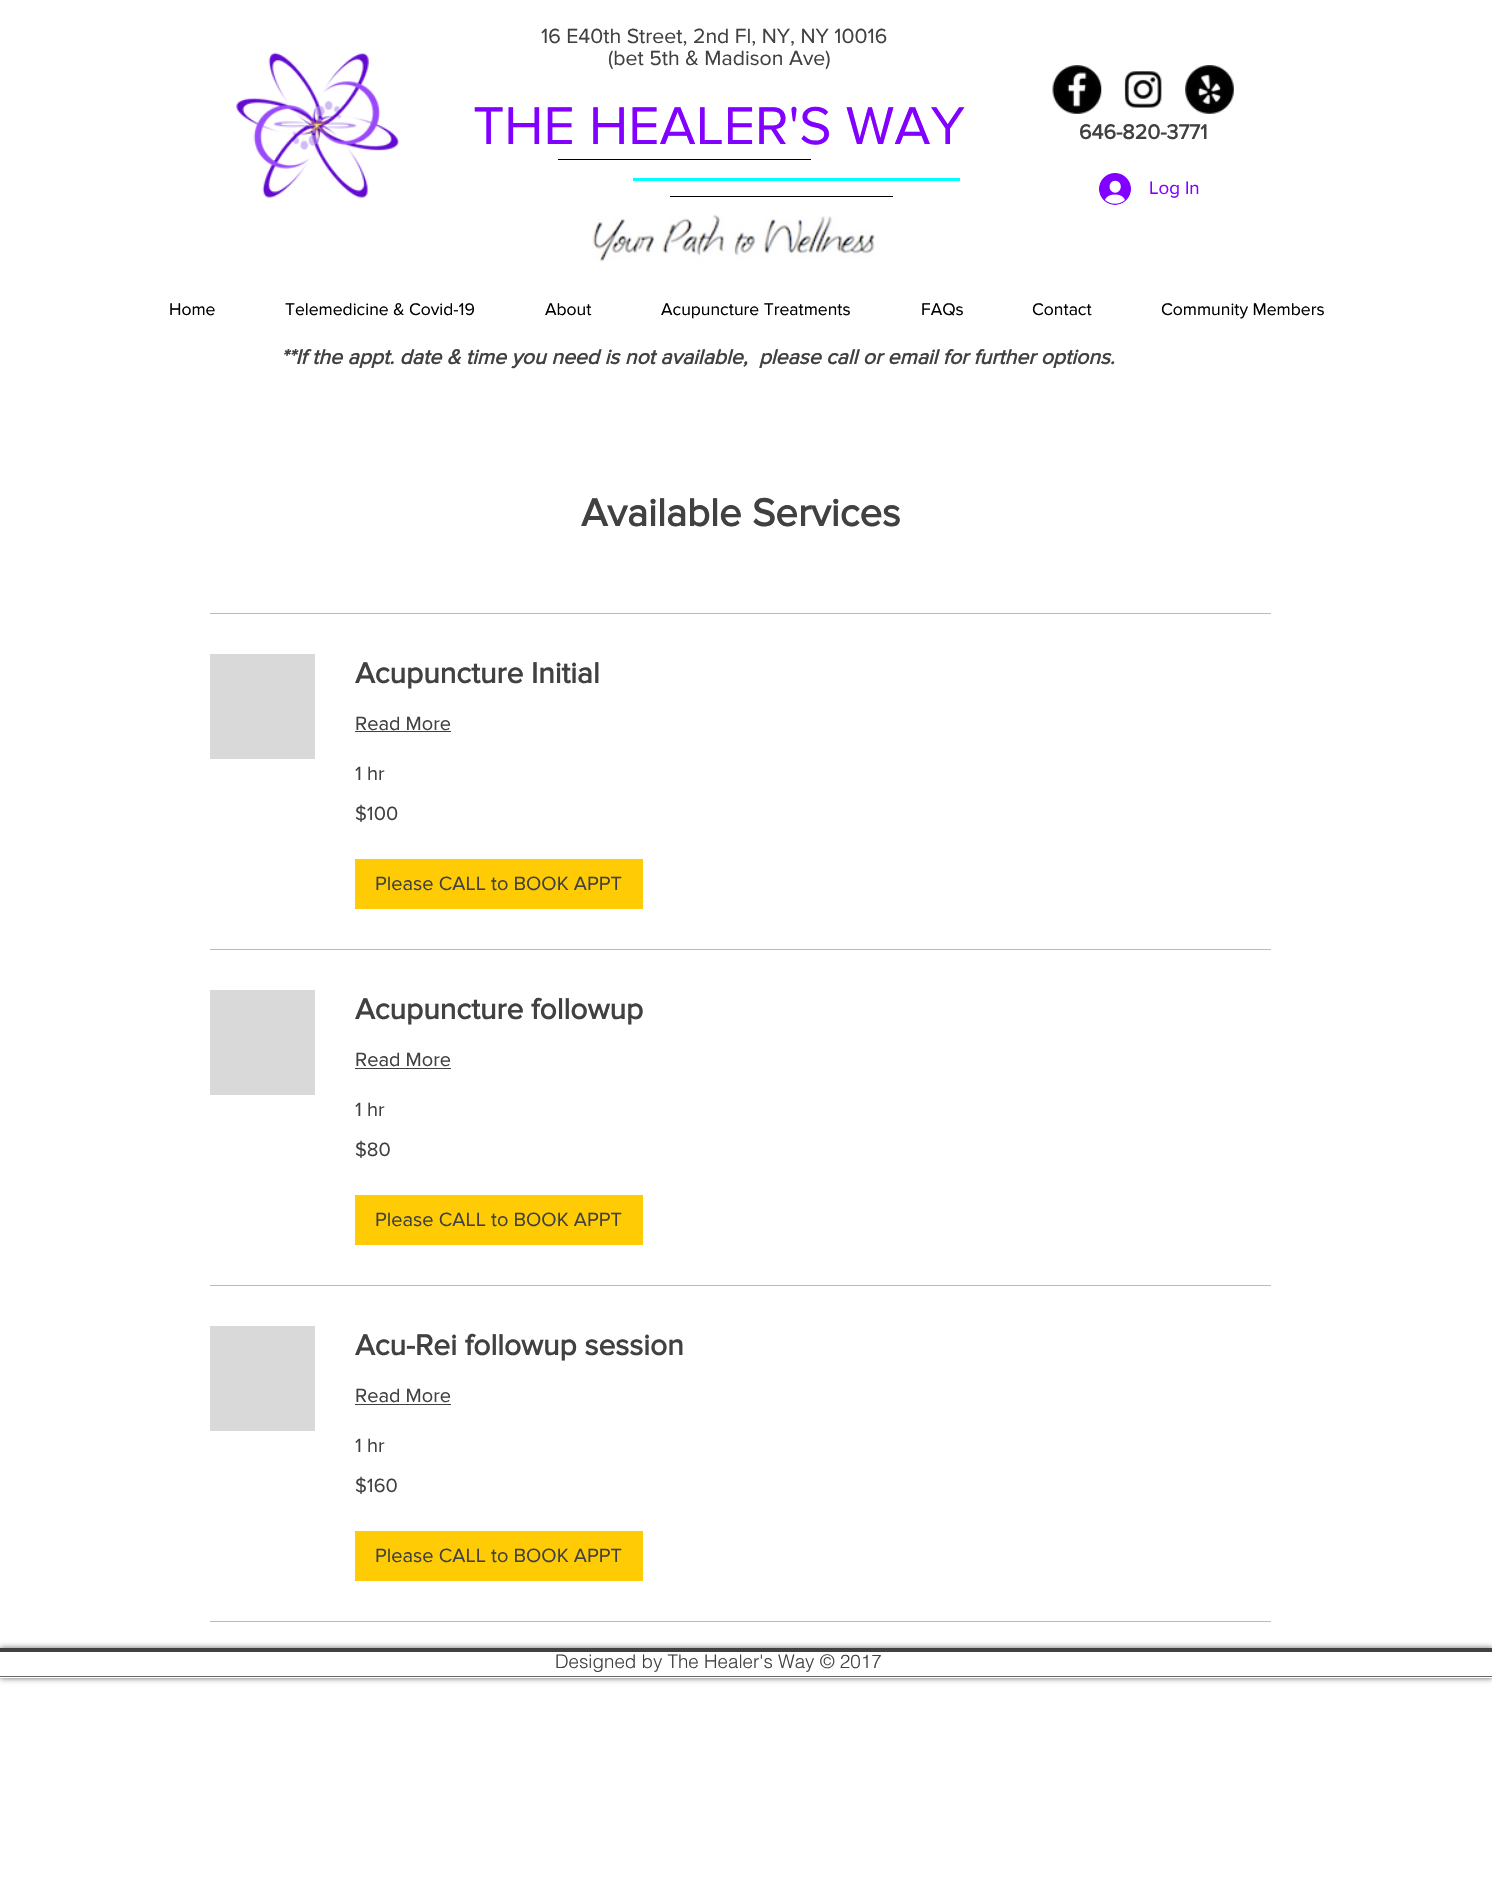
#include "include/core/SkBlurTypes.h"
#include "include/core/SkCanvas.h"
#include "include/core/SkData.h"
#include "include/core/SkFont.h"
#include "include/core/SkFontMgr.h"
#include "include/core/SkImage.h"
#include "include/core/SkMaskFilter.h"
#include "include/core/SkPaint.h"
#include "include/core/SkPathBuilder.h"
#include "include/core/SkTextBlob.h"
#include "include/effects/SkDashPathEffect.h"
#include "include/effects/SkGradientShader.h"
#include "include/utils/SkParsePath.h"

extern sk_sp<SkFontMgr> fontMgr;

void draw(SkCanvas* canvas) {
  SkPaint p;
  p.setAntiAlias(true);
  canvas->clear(SK_ColorWHITE);
  canvas->drawImageRect(SkImages::DeferredFromEncodedData(SkData::MakeFromFileName("images/1.png")), SkRect::MakeLTRB(236, 52, 399, 198), SkSamplingOptions());
  canvas->drawImageRect(SkImages::DeferredFromEncodedData(SkData::MakeFromFileName("images/2.png")), SkRect::MakeLTRB(1052, 65, 1102, 114), SkSamplingOptions());
  canvas->drawImageRect(SkImages::DeferredFromEncodedData(SkData::MakeFromFileName("images/3.png")), SkRect::MakeLTRB(1124, 71, 1162, 108), SkSamplingOptions());
  canvas->drawImageRect(SkImages::DeferredFromEncodedData(SkData::MakeFromFileName("images/4.png")), SkRect::MakeLTRB(1185, 65, 1234, 114), SkSamplingOptions());
  p.setColor(SK_ColorBLACK);
  canvas->drawRect(SkRect::MakeLTRB(558, 159, 811, 160), p);
  p.setColor(SkColorSetRGB(0, 255, 255));
  canvas->drawRect(SkRect::MakeLTRB(633, 178, 960, 181), p);
  p.setColor(SK_ColorBLACK);
  canvas->drawRect(SkRect::MakeLTRB(670, 196, 893, 197), p);
  canvas->drawImageRect(SkImages::DeferredFromEncodedData(SkData::MakeFromFileName("images/5.png")), SkRect::MakeLTRB(1099, 173, 1131, 205), SkSamplingOptions());
  canvas->drawImageRect(SkImages::DeferredFromEncodedData(SkData::MakeFromFileName("images/6.png")), SkRect::MakeLTRB(592, 214, 875, 262), SkSamplingOptions());
  p.setColor(SkColorSetRGB(187, 187, 187));
  canvas->drawRect(SkRect::MakeLTRB(210, 613, 1271, 614), p);
  p.setColor(SkColorSetRGB(217, 217, 217));
  canvas->drawRect(SkRect::MakeLTRB(210, 654, 315, 759), p);
  p.setColor(SkColorSetRGB(65, 65, 65));
  canvas->drawRect(SkRect::MakeLTRB(355, 731, 451, 732), p);
  p.setColor(SkColorSetRGB(255, 203, 5));
  canvas->drawRect(SkRect::MakeLTRB(355, 859, 643, 909), p);
  p.setColor(SkColorSetRGB(187, 187, 187));
  canvas->drawRect(SkRect::MakeLTRB(210, 949, 1271, 950), p);
  p.setColor(SkColorSetRGB(217, 217, 217));
  canvas->drawRect(SkRect::MakeLTRB(210, 990, 315, 1095), p);
  p.setColor(SkColorSetRGB(65, 65, 65));
  canvas->drawRect(SkRect::MakeLTRB(355, 1068, 451, 1069), p);
  p.setColor(SkColorSetRGB(255, 203, 5));
  canvas->drawRect(SkRect::MakeLTRB(355, 1195, 643, 1245), p);
  p.setColor(SkColorSetRGB(187, 187, 187));
  canvas->drawRect(SkRect::MakeLTRB(210, 1285, 1271, 1286), p);
  p.setColor(SkColorSetRGB(217, 217, 217));
  canvas->drawRect(SkRect::MakeLTRB(210, 1326, 315, 1431), p);
  p.setColor(SkColorSetRGB(65, 65, 65));
  canvas->drawRect(SkRect::MakeLTRB(355, 1404, 451, 1405), p);
  p.setColor(SkColorSetRGB(255, 203, 5));
  canvas->drawRect(SkRect::MakeLTRB(355, 1531, 643, 1581), p);
  p.setColor(SkColorSetRGB(187, 187, 187));
  canvas->drawRect(SkRect::MakeLTRB(210, 1621, 1271, 1622), p);
  p.setColor(SkColorSetARGB(153, 0, 0, 0));
  p.setMaskFilter(SkMaskFilter::MakeBlur(kNormal_SkBlurStyle, 3));
  canvas->drawRect(SkRect::MakeLTRB(0, 1648, 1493, 1678), p);
  p.setMaskFilter(nullptr);
  p.setColor(SK_ColorWHITE);
  canvas->drawRect(SkRect::MakeLTRB(0, 1652, 1492, 1678), p);
  p.setColor(SkColorSetRGB(102, 102, 102));
  canvas->drawRect(SkRect::MakeLTRB(0, 1676, 1492, 1677), p);
  p.setColor(SkColorSetRGB(65, 65, 65));
  canvas->drawRect(SkRect::MakeLTRB(0, 1648, 1492, 1652), p);
  SkFont font1(fontMgr->matchFamilyStyle("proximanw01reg", SkFontStyle::Normal()), 21.25f);
  font1.setSubpixel(true);
  canvas->drawString("16 E40th Street, 2nd Fl, NY, NY 10016", 541, 43, font1, p);
  canvas->drawString("(bet 5th & Madison Ave)", 608, 65, font1, p);
  SkFont font2(fontMgr->matchFamilyStyle("proximanw01reg", SkFontStyle::Normal()), 55);
  font2.setSubpixel(true);
  p.setColor(SkColorSetRGB(130, 0, 255));
  canvas->drawString("THE HEALER'S WAY", 473, 144, font2, p);
  SkFont font3(fontMgr->matchFamilyStyle("proximanw01reg", SkFontStyle::Bold()), 21.25f);
  font3.setSubpixel(true);
  p.setColor(SkColorSetRGB(65, 65, 65));
  canvas->drawString("646-820-3771", 1079, 139, font3, p);
  SkFont font4(fontMgr->matchFamilyStyle("proximanw01reg", SkFontStyle::Normal()), 18.75f);
  font4.setSubpixel(true);
  p.setColor(SkColorSetRGB(130, 0, 255));
  canvas->drawString("Log In", 1149, 194, font4, p);
  SkFont font5(fontMgr->matchFamilyStyle("proximanw01reg", SkFontStyle::Normal()), 17.5f);
  font5.setSubpixel(true);
  p.setColor(SK_ColorBLACK);
  canvas->drawString("Home", 169, 315, font5, p);
  canvas->drawString("Telemedicine & Covid-19", 285, 315, font5, p);
  canvas->drawString("About", 545, 315, font5, p);
  canvas->drawString("Acupuncture Treatments", 661, 315, font5, p);
  canvas->drawString("FAQs", 921, 315, font5, p);
  canvas->drawString("Contact", 1032, 315, font5, p);
  canvas->drawString("Community Members", 1161, 315, font5, p);
  SkFont font6(fontMgr->matchFamilyStyle("proximanw01reg", SkFontStyle::BoldItalic()), 21.25f);
  font6.setSubpixel(true);
  p.setColor(SkColorSetRGB(65, 65, 65));
  canvas->drawString("**If the appt. date & time you need is not available,  please call or email for further options.", 281, 364, font6, p);
  SkFont font7(fontMgr->matchFamilyStyle("proximanw01reg", SkFontStyle::Bold()), 40);
  font7.setSubpixel(true);
  canvas->drawString("Available Services", 581, 526, font7, p);
  SkFont font8(fontMgr->matchFamilyStyle("proximanw01reg", SkFontStyle::Bold()), 30);
  font8.setSubpixel(true);
  canvas->drawString("Acupuncture Initial", 355, 683, font8, p);
  SkFont font9(fontMgr->matchFamilyStyle("proximanw01reg", SkFontStyle::Normal()), 20);
  font9.setSubpixel(true);
  canvas->drawString("Read More", 355, 730, font9, p);
  canvas->drawString("1 hr", 355, 780, font9, p);
  canvas->drawString("$100", 355, 820, font9, p);
  canvas->drawString("Please CALL to BOOK APPT", 375, 890, font9, p);
  canvas->drawString("Acupuncture followup", 355, 1019, font8, p);
  canvas->drawString("Read More", 355, 1066, font9, p);
  canvas->drawString("1 hr", 355, 1116, font9, p);
  canvas->drawString("$80", 355, 1156, font9, p);
  canvas->drawString("Please CALL to BOOK APPT", 375, 1226, font9, p);
  canvas->drawString("Acu-Rei followup session", 355, 1355, font8, p);
  canvas->drawString("Read More", 355, 1402, font9, p);
  canvas->drawString("1 hr", 355, 1452, font9, p);
  canvas->drawString("$160", 355, 1492, font9, p);
  canvas->drawString("Please CALL to BOOK APPT", 375, 1562, font9, p);
  SkFont font10(fontMgr->matchFamilyStyle("helvetica", SkFontStyle(300, SkFontStyle::kNormal_Width, SkFontStyle::kUpright_Slant)), 18.75f);
  font10.setSubpixel(true);
  canvas->drawString("Designed by The Healer's Way © 2017", 555, 1668, font10, p);
}
